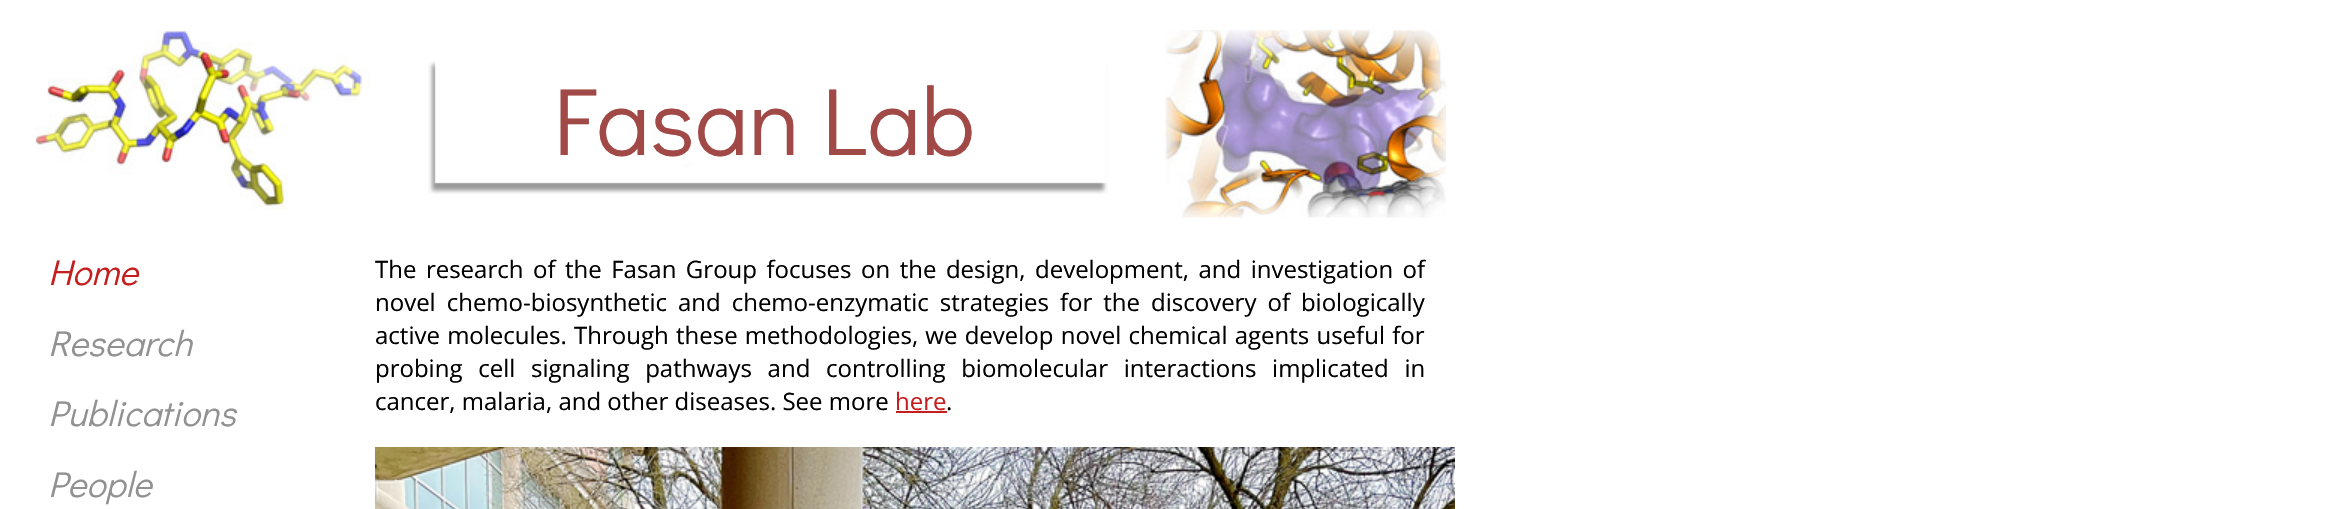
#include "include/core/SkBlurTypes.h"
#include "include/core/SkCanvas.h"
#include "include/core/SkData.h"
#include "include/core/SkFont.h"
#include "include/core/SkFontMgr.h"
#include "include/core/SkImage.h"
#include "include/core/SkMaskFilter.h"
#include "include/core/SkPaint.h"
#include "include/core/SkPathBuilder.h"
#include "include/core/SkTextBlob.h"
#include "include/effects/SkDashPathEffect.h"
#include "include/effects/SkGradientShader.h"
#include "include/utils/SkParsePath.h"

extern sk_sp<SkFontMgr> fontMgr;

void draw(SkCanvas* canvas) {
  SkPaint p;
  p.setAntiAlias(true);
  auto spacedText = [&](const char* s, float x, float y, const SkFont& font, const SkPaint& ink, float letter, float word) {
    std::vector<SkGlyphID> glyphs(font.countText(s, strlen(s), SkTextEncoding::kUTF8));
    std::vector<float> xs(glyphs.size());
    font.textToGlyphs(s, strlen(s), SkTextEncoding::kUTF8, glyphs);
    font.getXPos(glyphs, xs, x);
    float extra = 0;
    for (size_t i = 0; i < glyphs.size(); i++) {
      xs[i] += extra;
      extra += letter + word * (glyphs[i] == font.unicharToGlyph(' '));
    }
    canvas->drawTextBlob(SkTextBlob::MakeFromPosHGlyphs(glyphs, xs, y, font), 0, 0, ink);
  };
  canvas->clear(SK_ColorWHITE);
  canvas->drawImageRect(SkImages::DeferredFromEncodedData(SkData::MakeFromFileName("images/1.png")), SkRect::MakeLTRB(35, 30, 370, 210), SkSamplingOptions());
  canvas->drawImageRect(SkImages::DeferredFromEncodedData(SkData::MakeFromFileName("images/2.png")), SkRect::MakeLTRB(428, 61, 1108, 194), SkSamplingOptions());
  canvas->drawImageRect(SkImages::DeferredFromEncodedData(SkData::MakeFromFileName("images/3.png")), SkRect::MakeLTRB(1165, 30, 1446, 218), SkSamplingOptions());
  p.setColor(SkColorSetRGB(198, 30, 30));
  canvas->drawRect(SkRect::MakeLTRB(896, 411, 947, 413), p);
  canvas->drawImageRect(SkImages::DeferredFromEncodedData(SkData::MakeFromFileName("images/4.png")), SkRect::MakeLTRB(375, 447, 1455, 509), SkSamplingOptions());
  SkFont font1(fontMgr->matchFamilyStyle("Didact Gothic", SkFontStyle::Normal()), 96);
  font1.setSubpixel(true);
  p.setColor(SkColorSetRGB(161, 73, 71));
  canvas->drawString("Fasan Lab", 553, 155, font1, p);
  SkFont font2(fontMgr->matchFamilyStyle("Didact Gothic", SkFontStyle::Italic()), 36);
  font2.setSubpixel(true);
  p.setColor(SkColorSetRGB(198, 30, 30));
  canvas->drawString("Home", 48, 285, font2, p);
  p.setColor(SkColorSetRGB(145, 145, 145));
  canvas->drawString("Research", 48, 356, font2, p);
  canvas->drawString("Publications", 48, 426, font2, p);
  canvas->drawString("People", 48, 497, font2, p);
  SkFont font3(fontMgr->matchFamilyStyle("Open Sans", SkFontStyle::Normal()), 24);
  font3.setSubpixel(true);
  p.setColor(SK_ColorBLACK);
  spacedText("The research of the Fasan Group focuses on the design, development, and investigation of", 375, 278, font3, p, 0, 3.25f);
  spacedText("novel chemo-biosynthetic and chemo-enzymatic strategies for the discovery of biologically", 375, 311, font3, p, 0, 4.75f);
  spacedText("active molecules. Through these methodologies, we develop novel chemical agents useful for", 375, 344, font3, p, 0, 1);
  spacedText("probing cell signaling pathways and controlling biomolecular interactions implicated in", 375, 377, font3, p, 0, 9.5f);
  canvas->drawString("cancer, malaria, and other diseases. See more", 375, 410, font3, p);
  p.setColor(SkColorSetRGB(198, 30, 30));
  canvas->drawString("here", 895, 410, font3, p);
  p.setColor(SK_ColorBLACK);
  canvas->drawString(".", 946, 410, font3, p);
}
